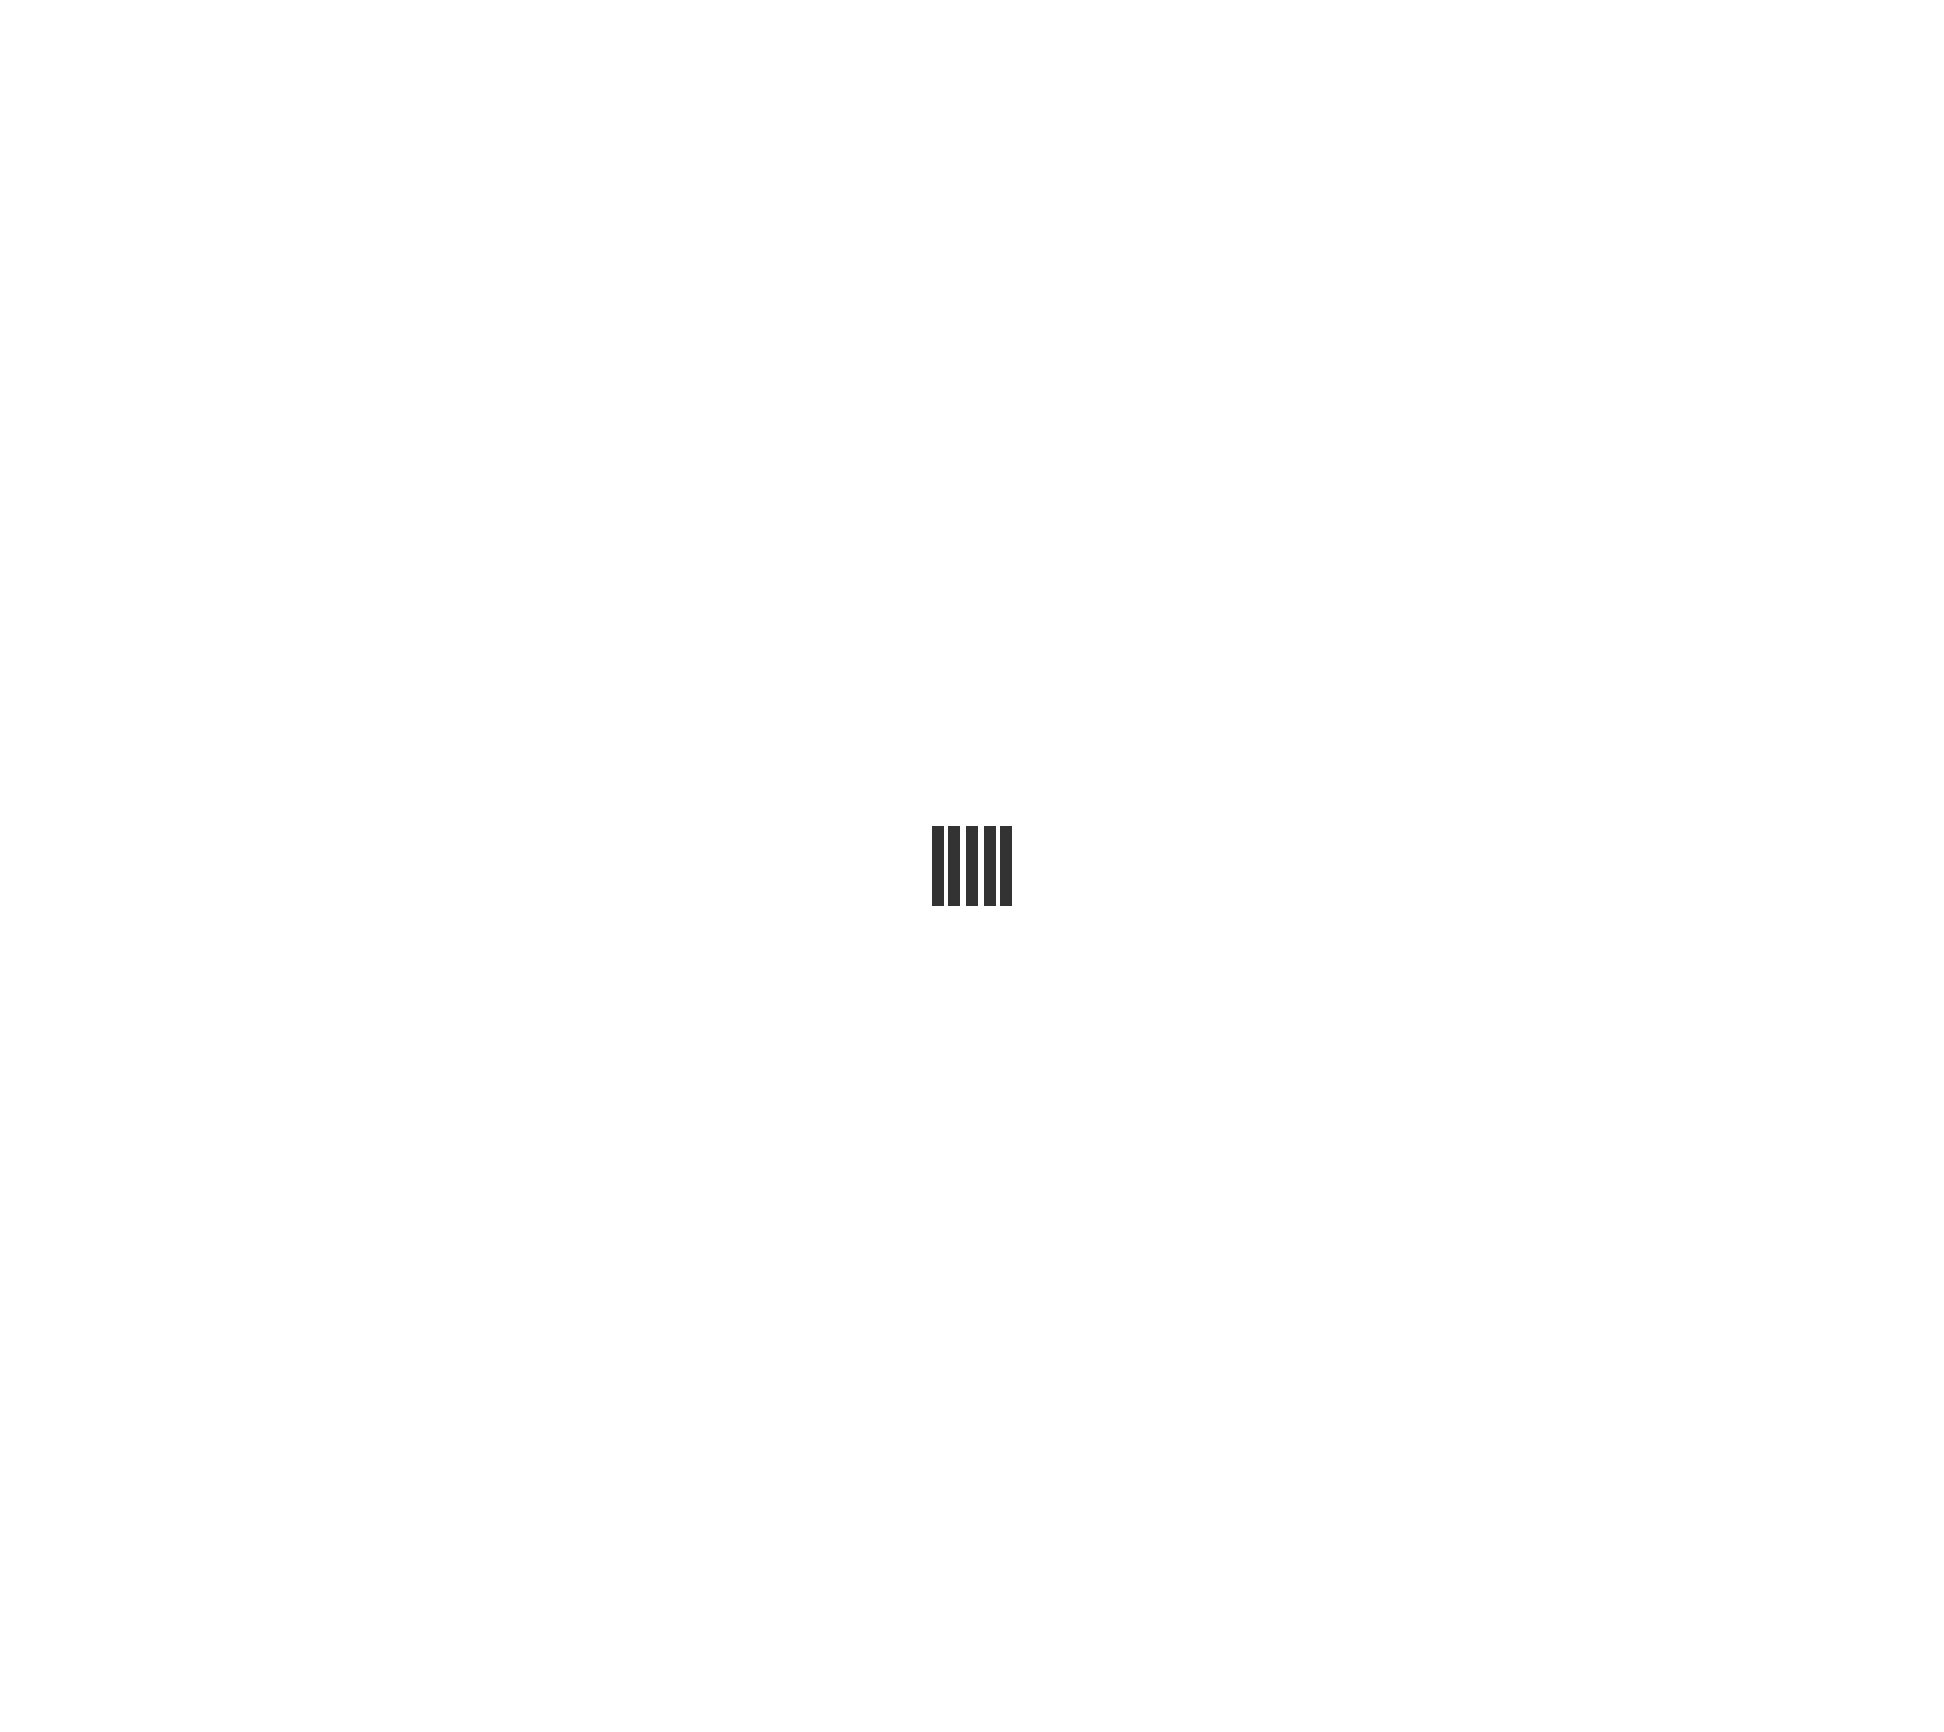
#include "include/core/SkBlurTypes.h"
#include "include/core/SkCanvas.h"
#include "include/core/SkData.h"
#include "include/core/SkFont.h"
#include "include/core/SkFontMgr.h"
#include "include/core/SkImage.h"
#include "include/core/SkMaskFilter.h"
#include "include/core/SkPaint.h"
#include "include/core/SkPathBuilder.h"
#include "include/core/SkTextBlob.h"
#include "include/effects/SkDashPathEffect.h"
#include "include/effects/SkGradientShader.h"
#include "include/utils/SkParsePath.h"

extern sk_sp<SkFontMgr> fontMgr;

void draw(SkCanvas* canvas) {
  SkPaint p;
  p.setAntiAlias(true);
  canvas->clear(SK_ColorWHITE);
  p.setColor(SkColorSetRGB(51, 51, 51));
  canvas->drawRect(SkRect::MakeLTRB(932, 826, 944, 906), p);
  canvas->drawRect(SkRect::MakeLTRB(948, 826, 960, 906), p);
  canvas->drawRect(SkRect::MakeLTRB(966, 826, 978, 906), p);
  canvas->drawRect(SkRect::MakeLTRB(984, 826, 996, 906), p);
  canvas->drawRect(SkRect::MakeLTRB(1000, 826, 1012, 906), p);
}
